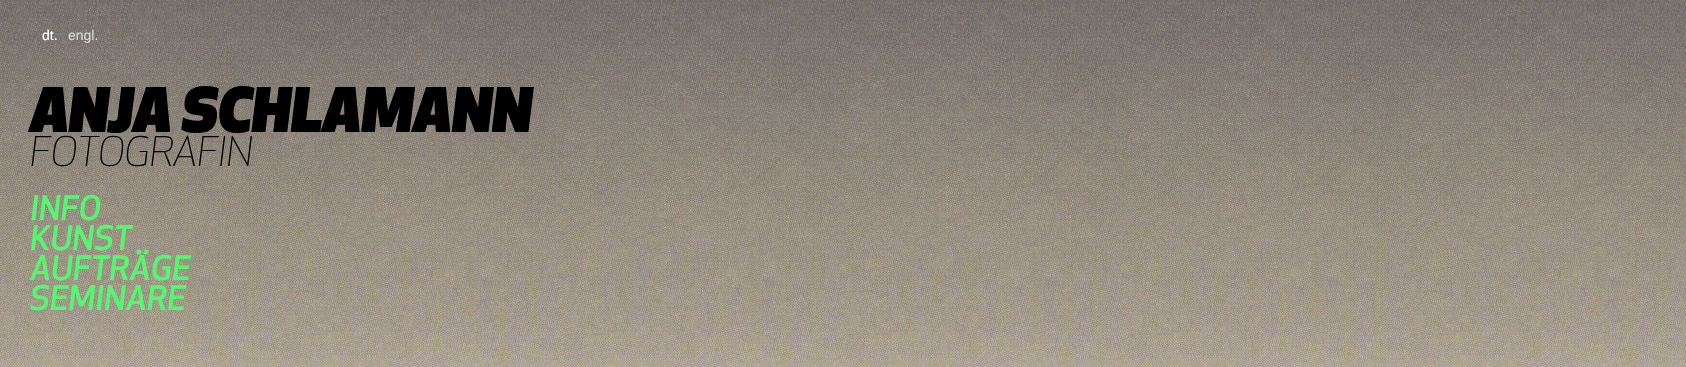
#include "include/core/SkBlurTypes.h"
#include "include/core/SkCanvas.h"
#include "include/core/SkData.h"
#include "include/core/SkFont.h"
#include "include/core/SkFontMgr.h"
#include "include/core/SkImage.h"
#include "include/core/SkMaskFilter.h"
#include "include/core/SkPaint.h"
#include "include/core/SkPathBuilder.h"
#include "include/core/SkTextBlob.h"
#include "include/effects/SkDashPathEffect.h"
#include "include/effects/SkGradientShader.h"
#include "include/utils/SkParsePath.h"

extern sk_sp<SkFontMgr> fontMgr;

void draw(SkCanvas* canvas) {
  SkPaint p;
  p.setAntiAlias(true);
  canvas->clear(SK_ColorWHITE);
  canvas->drawImageRect(SkImages::DeferredFromEncodedData(SkData::MakeFromFileName("images/1.png")), SkRect::MakeLTRB(0, 0, 1686, 367), SkSamplingOptions());
  SkFont font1(fontMgr->matchFamilyStyle("Liberation Sans", SkFontStyle::Normal()), 14);
  font1.setSubpixel(true);
  p.setColor(SK_ColorWHITE);
  canvas->drawString("dt.", 42, 40, font1, p);
  p.setColor(SkColorSetRGB(216, 214, 212));
  canvas->drawString("engl.", 68, 40, font1, p);
  SkFont font2(fontMgr->matchFamilyStyle("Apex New", SkFontStyle::BoldItalic()), 60);
  font2.setSubpixel(true);
  p.setColor(SK_ColorBLACK);
  canvas->drawString("ANJA SCHLAMANN", 30, 132, font2, p);
  SkFont font3(fontMgr->matchFamilyStyle("Apex New", SkFontStyle(500, SkFontStyle::kNormal_Width, SkFontStyle::kItalic_Slant)), 40);
  font3.setSubpixel(true);
  canvas->drawString("FOTOGRAFIN", 30, 166, font3, p);
  SkFont font4(fontMgr->matchFamilyStyle("Apex New", SkFontStyle(600, SkFontStyle::kNormal_Width, SkFontStyle::kItalic_Slant)), 33);
  font4.setSubpixel(true);
  p.setColor(SkColorSetRGB(85, 247, 113));
  canvas->drawString("INFO", 30, 220, font4, p);
  canvas->drawString("KUNST", 30, 250, font4, p);
  canvas->drawString("AUFTRÄGE", 30, 280, font4, p);
  canvas->drawString("SEMINARE", 30, 310, font4, p);
}
